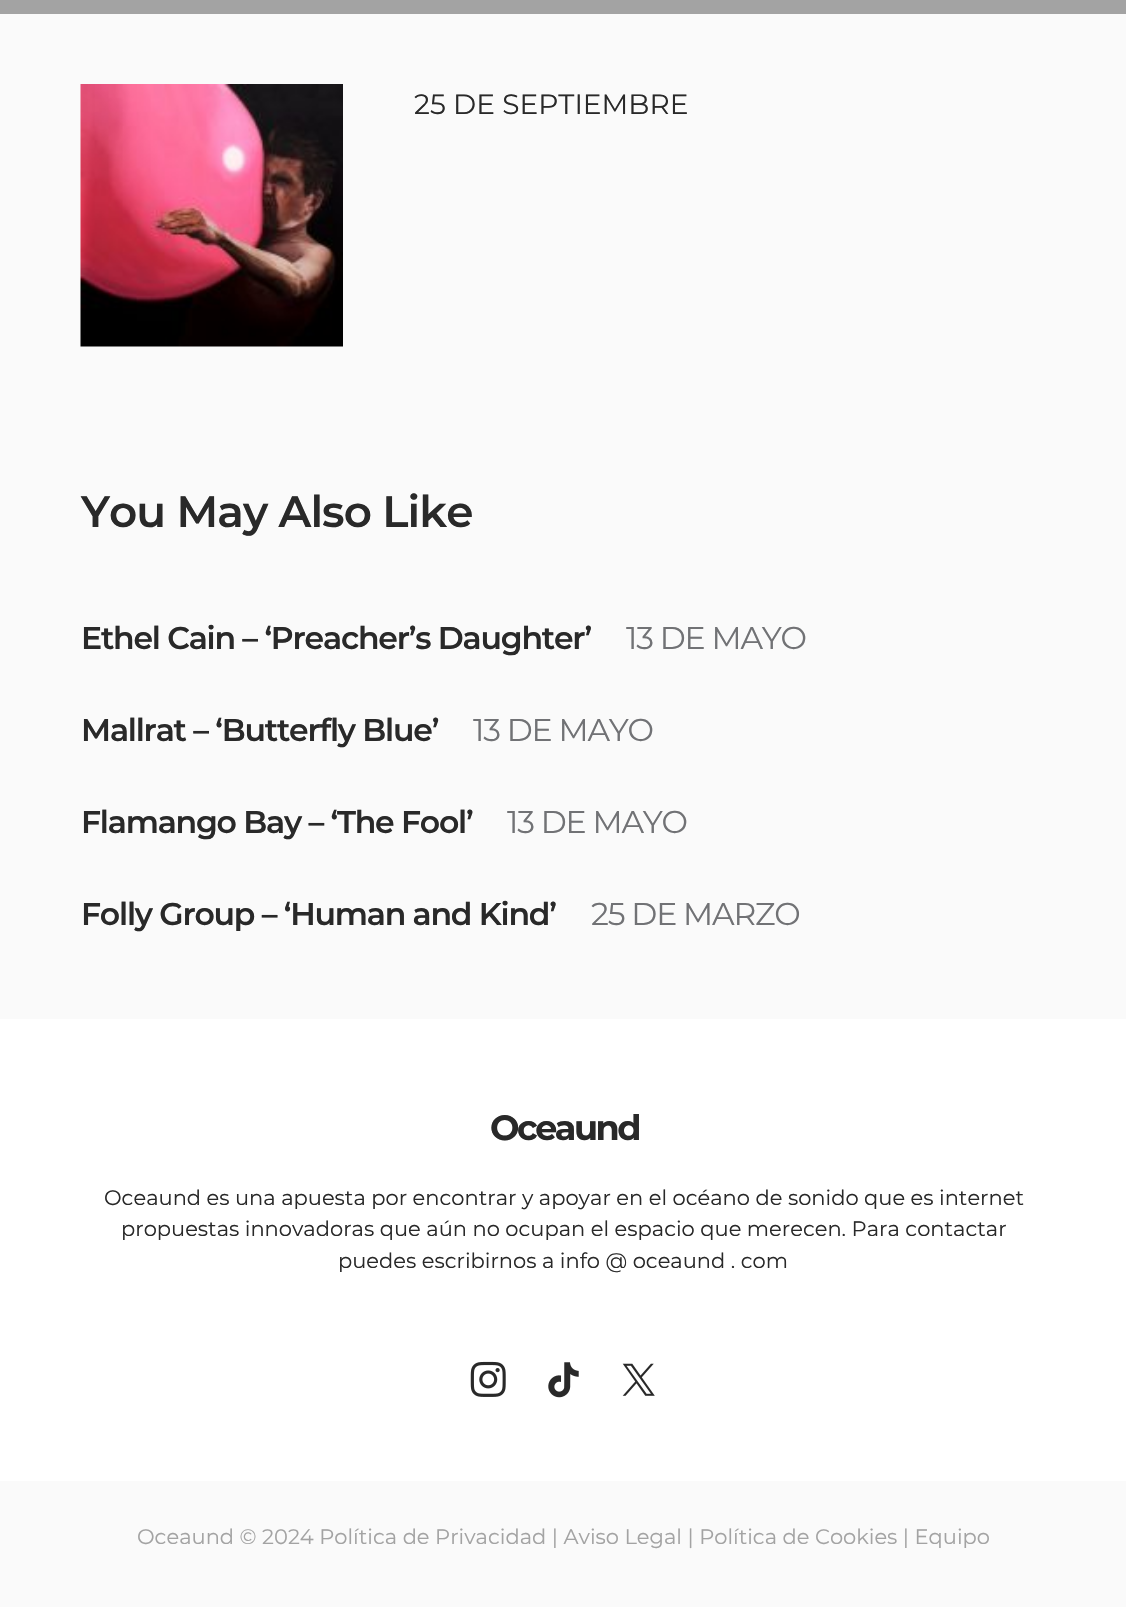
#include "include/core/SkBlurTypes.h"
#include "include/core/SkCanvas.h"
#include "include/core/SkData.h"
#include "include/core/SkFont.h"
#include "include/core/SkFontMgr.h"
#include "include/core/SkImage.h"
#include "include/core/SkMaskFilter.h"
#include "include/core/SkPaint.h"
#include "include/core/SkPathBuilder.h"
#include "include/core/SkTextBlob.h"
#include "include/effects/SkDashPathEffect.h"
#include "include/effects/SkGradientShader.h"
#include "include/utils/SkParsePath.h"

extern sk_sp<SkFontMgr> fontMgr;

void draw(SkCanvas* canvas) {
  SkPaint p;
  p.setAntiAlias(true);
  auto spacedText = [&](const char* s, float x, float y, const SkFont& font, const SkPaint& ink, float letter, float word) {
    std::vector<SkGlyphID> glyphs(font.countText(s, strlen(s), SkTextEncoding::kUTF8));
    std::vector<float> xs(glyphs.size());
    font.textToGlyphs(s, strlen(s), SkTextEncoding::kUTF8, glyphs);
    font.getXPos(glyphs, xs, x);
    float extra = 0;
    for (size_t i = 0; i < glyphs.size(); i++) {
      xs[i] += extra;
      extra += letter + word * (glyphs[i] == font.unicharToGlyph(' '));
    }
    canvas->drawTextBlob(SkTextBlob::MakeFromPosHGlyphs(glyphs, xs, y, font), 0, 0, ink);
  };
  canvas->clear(SkColorSetRGB(250, 250, 250));
  p.setColor(SkColorSetRGB(163, 163, 163));
  canvas->drawRect(SkRect::MakeLTRB(0, 0, 1126, 14), p);
  canvas->drawImageRect(SkImages::DeferredFromEncodedData(SkData::MakeFromFileName("images/1.png")), SkRect::MakeLTRB(80, 84, 343, 347), SkSamplingOptions());
  p.setColor(SK_ColorWHITE);
  canvas->drawRect(SkRect::MakeLTRB(0, 1019, 1126, 1481), p);
  canvas->drawImageRect(SkImages::DeferredFromEncodedData(SkData::MakeFromFileName("images/2.png")), SkRect::MakeLTRB(470, 1361, 506, 1397), SkSamplingOptions());
  canvas->drawImageRect(SkImages::DeferredFromEncodedData(SkData::MakeFromFileName("images/3.png")), SkRect::MakeLTRB(548, 1362, 579, 1398), SkSamplingOptions());
  canvas->drawImageRect(SkImages::DeferredFromEncodedData(SkData::MakeFromFileName("images/4.png")), SkRect::MakeLTRB(622, 1363, 655, 1396), SkSamplingOptions());
  SkFont font1(fontMgr->matchFamilyStyle("Montserrat", SkFontStyle::Normal()), 28);
  font1.setSubpixel(true);
  p.setColor(SkColorSetRGB(41, 41, 41));
  canvas->drawString("25 DE SEPTIEMBRE", 414, 114, font1, p);
  SkFont font2(fontMgr->matchFamilyStyle("Montserrat", SkFontStyle(600, SkFontStyle::kNormal_Width, SkFontStyle::kUpright_Slant)), 43.75f);
  font2.setSubpixel(true);
  spacedText("You May Also Like", 81, 527, font2, p, -0.9f, 0);
  SkFont font3(fontMgr->matchFamilyStyle("Montserrat", SkFontStyle(600, SkFontStyle::kNormal_Width, SkFontStyle::kUpright_Slant)), 31.5f);
  font3.setSubpixel(true);
  spacedText("Ethel Cain – ‘Preacher’s Daughter’", 81, 649, font3, p, -1.2f, 0);
  SkFont font4(fontMgr->matchFamilyStyle("Montserrat", SkFontStyle::Normal()), 31.5f);
  font4.setSubpixel(true);
  p.setColor(SkColorSetRGB(113, 114, 117));
  spacedText("13 DE MAYO", 626, 649, font4, p, -1.2f, 0);
  p.setColor(SkColorSetRGB(41, 41, 41));
  spacedText("Mallrat – ‘Butterfly Blue’", 81, 741, font3, p, -1.2f, 0);
  p.setColor(SkColorSetRGB(113, 114, 117));
  spacedText("13 DE MAYO", 473, 741, font4, p, -1.2f, 0);
  p.setColor(SkColorSetRGB(41, 41, 41));
  spacedText("Flamango Bay – ‘The Fool’", 81, 833, font3, p, -1.2f, 0);
  p.setColor(SkColorSetRGB(113, 114, 117));
  spacedText("13 DE MAYO", 507, 833, font4, p, -1.2f, 0);
  p.setColor(SkColorSetRGB(41, 41, 41));
  spacedText("Folly Group – ‘Human and Kind’", 81, 925, font3, p, -1.2f, 0);
  p.setColor(SkColorSetRGB(113, 114, 117));
  spacedText("25 DE MARZO", 591, 925, font4, p, -1.2f, 0);
  SkFont font5(fontMgr->matchFamilyStyle("Montserrat", SkFontStyle::Bold()), 35);
  font5.setSubpixel(true);
  p.setColor(SkColorSetRGB(41, 41, 41));
  spacedText("Oceaund", 490, 1140, font5, p, -2.5f, 0);
  SkFont font6(fontMgr->matchFamilyStyle("Montserrat", SkFontStyle::Normal()), 21);
  font6.setSubpixel(true);
  canvas->drawString("Oceaund es una apuesta por encontrar y apoyar en el océano de sonido que es internet", 104, 1205, font6, p);
  canvas->drawString("propuestas innovadoras que aún no ocupan el espacio que merecen. Para contactar", 121, 1236, font6, p);
  canvas->drawString("puedes escribirnos a info @ oceaund . com", 338, 1268, font6, p);
  p.setColor(SkColorSetRGB(163, 163, 163));
  canvas->drawString("Oceaund © 2024 Política de Privacidad | Aviso Legal | Política de Cookies | Equipo", 137, 1544, font6, p);
}
